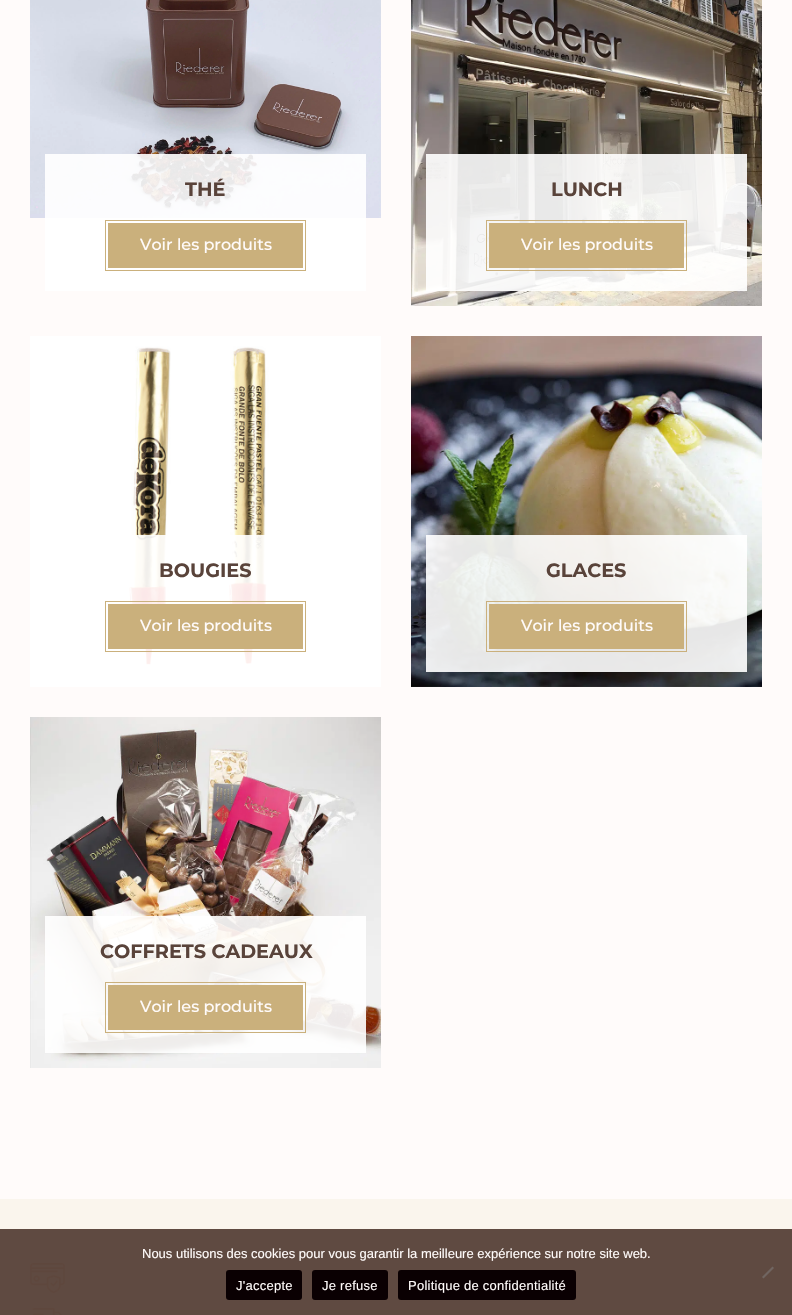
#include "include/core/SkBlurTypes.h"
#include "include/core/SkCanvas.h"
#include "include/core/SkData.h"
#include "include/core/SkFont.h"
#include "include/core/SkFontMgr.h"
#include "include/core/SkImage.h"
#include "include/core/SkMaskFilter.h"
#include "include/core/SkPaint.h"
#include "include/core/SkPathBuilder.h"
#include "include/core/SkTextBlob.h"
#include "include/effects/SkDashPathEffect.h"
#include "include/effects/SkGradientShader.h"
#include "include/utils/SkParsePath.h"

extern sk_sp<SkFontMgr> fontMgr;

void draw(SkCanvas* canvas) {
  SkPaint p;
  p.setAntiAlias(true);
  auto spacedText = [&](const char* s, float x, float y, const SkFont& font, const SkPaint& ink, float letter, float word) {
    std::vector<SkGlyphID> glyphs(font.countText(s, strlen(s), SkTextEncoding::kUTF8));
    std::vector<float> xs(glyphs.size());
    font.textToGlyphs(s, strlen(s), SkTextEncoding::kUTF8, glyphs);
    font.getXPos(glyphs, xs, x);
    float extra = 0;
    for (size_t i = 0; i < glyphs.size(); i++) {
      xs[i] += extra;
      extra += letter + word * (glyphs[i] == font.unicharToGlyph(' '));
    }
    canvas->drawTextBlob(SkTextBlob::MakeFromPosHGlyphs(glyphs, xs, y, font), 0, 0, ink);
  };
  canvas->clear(SkColorSetRGB(255, 251, 250));
  canvas->drawImageRect(SkImages::DeferredFromEncodedData(SkData::MakeFromFileName("images/1.png")), SkRect::MakeLTRB(30, 0, 381, 218), SkSamplingOptions());
  p.setColor(SkColorSetARGB(230, 255, 255, 255));
  canvas->drawRect(SkRect::MakeLTRB(45, 154, 366, 291), p);
  p.setStyle(SkPaint::kStroke_Style);
  p.setStrokeWidth(1);
  p.setColor(SkColorSetRGB(202, 176, 124));
  canvas->drawRect(SkRect::MakeLTRB(105.5f, 220.5f, 305.5f, 270.5f), p);
  p.setStyle(SkPaint::kFill_Style);
  canvas->drawRect(SkRect::MakeLTRB(108, 223, 303, 268), p);
  canvas->drawImageRect(SkImages::DeferredFromEncodedData(SkData::MakeFromFileName("images/2.png")), SkRect::MakeLTRB(411, 0, 762, 306), SkSamplingOptions());
  p.setColor(SkColorSetARGB(230, 255, 255, 255));
  canvas->drawRect(SkRect::MakeLTRB(426, 154, 747, 291), p);
  p.setStyle(SkPaint::kStroke_Style);
  p.setColor(SkColorSetRGB(202, 176, 124));
  canvas->drawRect(SkRect::MakeLTRB(486.5f, 220.5f, 686.5f, 270.5f), p);
  p.setStyle(SkPaint::kFill_Style);
  canvas->drawRect(SkRect::MakeLTRB(489, 223, 684, 268), p);
  canvas->drawImageRect(SkImages::DeferredFromEncodedData(SkData::MakeFromFileName("images/3.png")), SkRect::MakeLTRB(30, 336, 381, 687), SkSamplingOptions());
  p.setColor(SkColorSetARGB(230, 255, 255, 255));
  canvas->drawRect(SkRect::MakeLTRB(128, 535, 269, 666), p);
  p.setStyle(SkPaint::kStroke_Style);
  p.setColor(SkColorSetRGB(202, 176, 124));
  canvas->drawRect(SkRect::MakeLTRB(105.5f, 601.5f, 305.5f, 651.5f), p);
  p.setStyle(SkPaint::kFill_Style);
  canvas->drawRect(SkRect::MakeLTRB(108, 604, 303, 649), p);
  canvas->drawImageRect(SkImages::DeferredFromEncodedData(SkData::MakeFromFileName("images/4.png")), SkRect::MakeLTRB(411, 336, 762, 687), SkSamplingOptions());
  p.setColor(SkColorSetARGB(230, 255, 255, 255));
  canvas->drawRect(SkRect::MakeLTRB(426, 535, 747, 672), p);
  p.setStyle(SkPaint::kStroke_Style);
  p.setColor(SkColorSetRGB(202, 176, 124));
  canvas->drawRect(SkRect::MakeLTRB(486.5f, 601.5f, 686.5f, 651.5f), p);
  p.setStyle(SkPaint::kFill_Style);
  canvas->drawRect(SkRect::MakeLTRB(489, 604, 684, 649), p);
  canvas->drawImageRect(SkImages::DeferredFromEncodedData(SkData::MakeFromFileName("images/5.png")), SkRect::MakeLTRB(30, 717, 381, 1068), SkSamplingOptions());
  p.setColor(SkColorSetARGB(230, 255, 255, 255));
  canvas->drawRect(SkRect::MakeLTRB(45, 916, 366, 1053), p);
  p.setStyle(SkPaint::kStroke_Style);
  p.setColor(SkColorSetRGB(202, 176, 124));
  canvas->drawRect(SkRect::MakeLTRB(105.5f, 982.5f, 305.5f, 1032.5f), p);
  p.setStyle(SkPaint::kFill_Style);
  canvas->drawRect(SkRect::MakeLTRB(108, 985, 303, 1030), p);
  p.setColor(SkColorSetRGB(250, 245, 237));
  canvas->drawRect(SkRect::MakeLTRB(0, 1199, 792, 1229), p);
  p.setColor(SkColorSetRGB(95, 74, 65));
  canvas->drawRect(SkRect::MakeLTRB(0, 1229, 792, 1315), p);
  canvas->drawImageRect(SkImages::DeferredFromEncodedData(SkData::MakeFromFileName("images/6.png")), SkRect::MakeLTRB(30, 1263, 65, 1293), SkSamplingOptions());
  canvas->drawImageRect(SkImages::DeferredFromEncodedData(SkData::MakeFromFileName("images/7.png")), SkRect::MakeLTRB(32, 1308, 62, 1315), SkSamplingOptions());
  p.setColor(SkColorSetRGB(112, 101, 97));
  canvas->drawPath(SkPathBuilder().moveTo(772.5f, 1266.5f).lineTo(774, 1268).lineTo(763.5f, 1278.5f).lineTo(762, 1277).close().detach(), p);
  p.setColor(SkColorSetRGB(10, 0, 2));
  canvas->drawRoundRect(SkRect::MakeLTRB(226, 1270, 302, 1300), 3, 3, p);
  canvas->drawRoundRect(SkRect::MakeLTRB(312, 1270, 388, 1300), 3, 3, p);
  canvas->drawRoundRect(SkRect::MakeLTRB(398, 1270, 576, 1300), 3, 3, p);
  SkFont font1(fontMgr->matchFamilyStyle("Montserrat", SkFontStyle::Bold()), 19.25f);
  font1.setSubpixel(true);
  p.setColor(SkColorSetRGB(89, 67, 58));
  canvas->drawString("THÉ", 185, 196, font1, p);
  SkFont font2(fontMgr->matchFamilyStyle("Montserrat", SkFontStyle(500, SkFontStyle::kNormal_Width, SkFontStyle::kUpright_Slant)), 16);
  font2.setSubpixel(true);
  p.setColor(SkColorSetRGB(255, 251, 250));
  canvas->drawString("Voir les produits", 140, 250, font2, p);
  p.setColor(SkColorSetRGB(89, 67, 58));
  canvas->drawString("LUNCH", 551, 196, font1, p);
  p.setColor(SkColorSetRGB(255, 251, 250));
  canvas->drawString("Voir les produits", 521, 250, font2, p);
  p.setColor(SkColorSetRGB(89, 67, 58));
  canvas->drawString("BOUGIES", 159, 577, font1, p);
  p.setColor(SkColorSetRGB(255, 251, 250));
  canvas->drawString("Voir les produits", 140, 631, font2, p);
  p.setColor(SkColorSetRGB(89, 67, 58));
  canvas->drawString("GLACES", 546, 577, font1, p);
  p.setColor(SkColorSetRGB(255, 251, 250));
  canvas->drawString("Voir les produits", 521, 631, font2, p);
  p.setColor(SkColorSetRGB(89, 67, 58));
  canvas->drawString("COFFRETS CADEAUX", 100, 958, font1, p);
  p.setColor(SkColorSetRGB(255, 251, 250));
  canvas->drawString("Voir les produits", 140, 1012, font2, p);
  SkFont font3(fontMgr->matchFamilyStyle("Liberation Sans", SkFontStyle::Normal()), 13);
  font3.setSubpixel(true);
  canvas->drawString("Nous utilisons des cookies pour vous garantir la meilleure expérience sur notre site web.", 142, 1258, font3, p);
  spacedText("J'accepte", 236, 1290, font3, p, 0.25f, 0);
  spacedText("Je refuse", 322, 1290, font3, p, 0.25f, 0);
  spacedText("Politique de confidentialité", 408, 1290, font3, p, 0.25f, 0);
}
